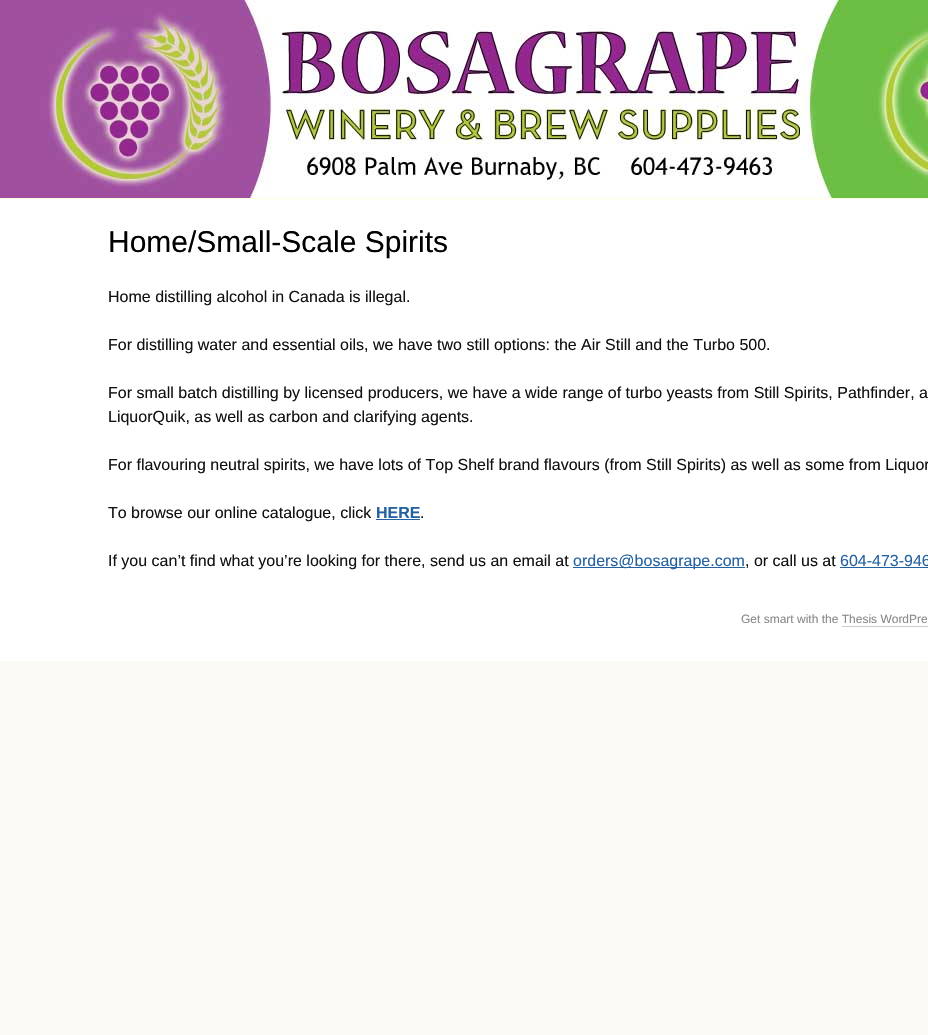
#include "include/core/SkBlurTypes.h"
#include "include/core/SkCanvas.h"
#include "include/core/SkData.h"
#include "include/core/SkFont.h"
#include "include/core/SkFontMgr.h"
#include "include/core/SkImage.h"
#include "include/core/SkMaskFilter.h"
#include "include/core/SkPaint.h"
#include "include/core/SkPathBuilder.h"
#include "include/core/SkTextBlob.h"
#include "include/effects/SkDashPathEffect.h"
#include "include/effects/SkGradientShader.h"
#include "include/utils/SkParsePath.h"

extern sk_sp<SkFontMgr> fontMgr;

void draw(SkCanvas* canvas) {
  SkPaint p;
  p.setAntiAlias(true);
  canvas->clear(SkColorSetRGB(251, 250, 245));
  p.setColor(SK_ColorWHITE);
  canvas->drawRect(SkRect::MakeLTRB(0, 199, 928, 661), p);
  canvas->drawImageRect(SkImages::DeferredFromEncodedData(SkData::MakeFromFileName("images/1.png")), SkRect::MakeLTRB(0, 0, 928, 198), SkSamplingOptions());
  p.setColor(SkColorSetRGB(254, 255, 219));
  canvas->drawRect(SkRect::MakeLTRB(0, 198, 928, 199), p);
  p.setColor(SkColorSetRGB(35, 97, 161));
  canvas->drawRect(SkRect::MakeLTRB(376, 519, 420, 520), p);
  canvas->drawRect(SkRect::MakeLTRB(573, 567, 745, 568), p);
  canvas->drawRect(SkRect::MakeLTRB(840, 567, 928, 568), p);
  p.setColor(SkColorSetRGB(204, 204, 204));
  canvas->drawRect(SkRect::MakeLTRB(842, 626, 928, 627), p);
  SkFont font1(fontMgr->matchFamilyStyle("Liberation Sans", SkFontStyle::Normal()), 30);
  font1.setSubpixel(true);
  p.setColor(SK_ColorBLACK);
  canvas->drawString("Home/Small-Scale Spirits", 108, 252, font1, p);
  SkFont font2(fontMgr->matchFamilyStyle("Liberation Sans", SkFontStyle::Normal()), 16);
  font2.setSubpixel(true);
  p.setColor(SkColorSetRGB(17, 17, 17));
  canvas->drawString("Home distilling alcohol in Canada is illegal.", 108, 302, font2, p);
  canvas->drawString("For distilling water and essential oils, we have two still options: the Air Still and the Turbo 500.", 108, 350, font2, p);
  canvas->drawString("For small batch distilling by licensed producers, we have a wide range of turbo yeasts from Still Spirits, Pathfinder, a", 108, 398, font2, p);
  canvas->drawString("LiquorQuik, as well as carbon and clarifying agents.", 108, 422, font2, p);
  canvas->drawString("For flavouring neutral spirits, we have lots of Top Shelf brand flavours (from Still Spirits) as well as some from Liquor", 108, 470, font2, p);
  canvas->drawString("To browse our online catalogue, click", 108, 518, font2, p);
  SkFont font3(fontMgr->matchFamilyStyle("Liberation Sans", SkFontStyle::Bold()), 16);
  font3.setSubpixel(true);
  p.setColor(SkColorSetRGB(35, 97, 161));
  canvas->drawString("HERE", 376, 518, font3, p);
  p.setColor(SkColorSetRGB(17, 17, 17));
  canvas->drawString(".", 420, 518, font2, p);
  canvas->drawString("If you can’t find what you’re looking for there, send us an email at", 108, 566, font2, p);
  p.setColor(SkColorSetRGB(35, 97, 161));
  canvas->drawString("orders@bosagrape.com", 573, 566, font2, p);
  p.setColor(SkColorSetRGB(17, 17, 17));
  canvas->drawString(", or call us at", 745, 566, font2, p);
  p.setColor(SkColorSetRGB(35, 97, 161));
  canvas->drawString("604-473-946", 840, 566, font2, p);
  SkFont font4(fontMgr->matchFamilyStyle("Liberation Sans", SkFontStyle::Normal()), 12);
  font4.setSubpixel(true);
  p.setColor(SkColorSetRGB(136, 136, 136));
  canvas->drawString("Get smart with the Thesis WordPre", 741, 623, font4, p);
}
